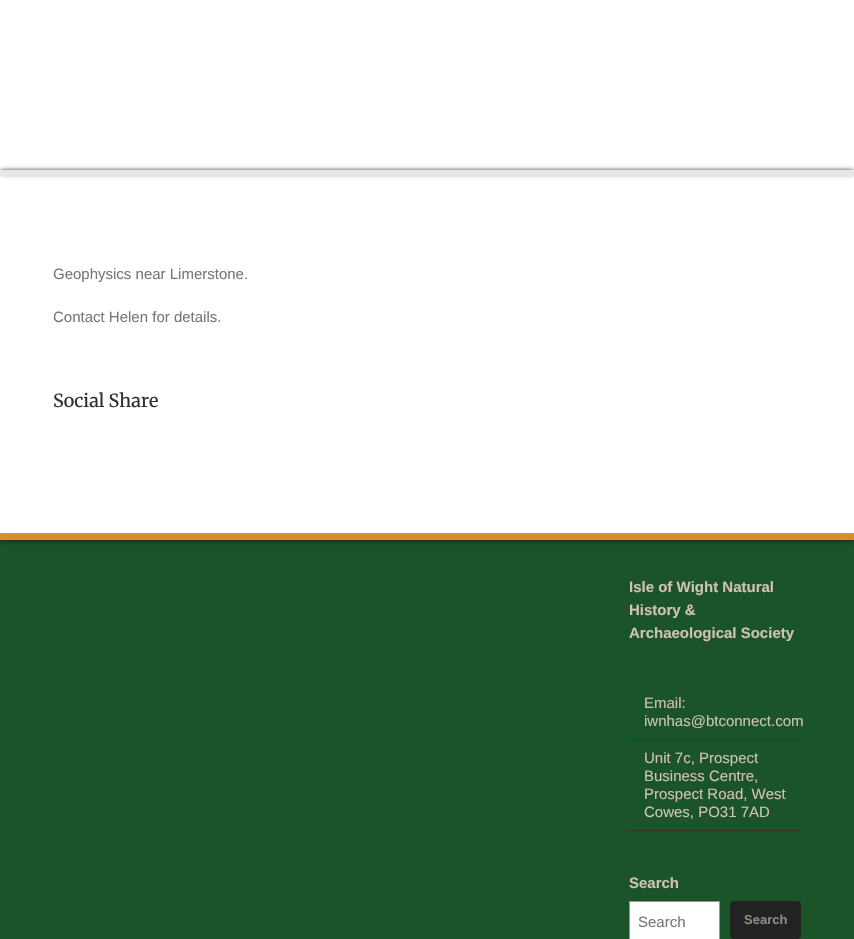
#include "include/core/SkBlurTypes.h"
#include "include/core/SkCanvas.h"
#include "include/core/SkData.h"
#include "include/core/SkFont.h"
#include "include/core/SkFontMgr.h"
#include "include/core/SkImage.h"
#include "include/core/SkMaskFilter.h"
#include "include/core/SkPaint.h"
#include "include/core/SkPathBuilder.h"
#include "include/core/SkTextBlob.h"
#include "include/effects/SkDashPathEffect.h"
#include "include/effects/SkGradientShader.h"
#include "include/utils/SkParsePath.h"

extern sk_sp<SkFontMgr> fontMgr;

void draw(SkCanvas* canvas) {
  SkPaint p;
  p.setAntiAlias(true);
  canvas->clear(SK_ColorWHITE);
  p.setColor(SkColorSetRGB(51, 51, 51));
  p.setMaskFilter(SkMaskFilter::MakeBlur(kNormal_SkBlurStyle, 2));
  canvas->drawRect(SkRect::MakeLTRB(1, 170, 853, 174), p);
  p.setMaskFilter(nullptr);
  p.setColor(SkColorSetRGB(231, 231, 231));
  canvas->drawRect(SkRect::MakeLTRB(0, 170, 854, 176), p);
  p.setColor(SkColorSetRGB(28, 84, 42));
  canvas->drawRect(SkRect::MakeLTRB(0, 540, 854, 939), p);
  canvas->save();
  canvas->clipRect(SkRect::MakeLTRB(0, 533, 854, 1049));
  p.setColor(SkColorSetRGB(17, 17, 17));
  p.setMaskFilter(SkMaskFilter::MakeBlur(kNormal_SkBlurStyle, 3));
  canvas->drawRect(SkRect::MakeLTRB(0, 533, 854, 540), p);
  p.setMaskFilter(nullptr);
  canvas->restore();
  p.setColor(SkColorSetRGB(224, 139, 38));
  canvas->drawRect(SkRect::MakeLTRB(0, 533, 854, 540), p);
  p.setColor(SkColorSetRGB(63, 54, 42));
  canvas->drawRect(SkRect::MakeLTRB(629, 739, 801, 740), p);
  canvas->drawRect(SkRect::MakeLTRB(629, 830, 801, 831), p);
  p.setColor(SK_ColorWHITE);
  canvas->drawRect(SkRect::MakeLTRB(629.5f, 901.5f, 719.5f, 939.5f), p);
  p.setStyle(SkPaint::kStroke_Style);
  p.setStrokeWidth(1);
  p.setColor(SkColorSetRGB(148, 148, 148));
  canvas->drawRect(SkRect::MakeLTRB(629.5f, 901.5f, 719.5f, 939.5f), p);
  p.setStyle(SkPaint::kFill_Style);
  p.setColor(SkColorSetRGB(34, 34, 34));
  canvas->drawRoundRect(SkRect::MakeLTRB(730, 901, 801, 939), 4, 4, p);
  SkFont font1(fontMgr->matchFamilyStyle("Liberation Sans", SkFontStyle::Normal()), 15);
  font1.setSubpixel(true);
  p.setColor(SkColorSetRGB(119, 119, 119));
  canvas->drawString("Geophysics near Limerstone.", 53, 279, font1, p);
  canvas->drawString("Contact Helen for details.", 53, 322, font1, p);
  SkFont font2(fontMgr->matchFamilyStyle("Merriweather", SkFontStyle::Normal()), 18);
  font2.setSubpixel(true);
  p.setColor(SkColorSetRGB(48, 48, 48));
  canvas->drawString("Social Share", 53, 407, font2, p);
  SkFont font3(fontMgr->matchFamilyStyle("Liberation Sans", SkFontStyle::Bold()), 15);
  font3.setSubpixel(true);
  p.setColor(SkColorSetRGB(207, 194, 174));
  canvas->drawString("Isle of Wight Natural", 629, 592, font3, p);
  canvas->drawString("History &", 629, 615, font3, p);
  canvas->drawString("Archaeological Society", 629, 638, font3, p);
  canvas->drawString("Email:", 644, 708, font1, p);
  canvas->drawString("iwnhas@btconnect.com", 644, 726, font1, p);
  canvas->drawString("Unit 7c, Prospect", 644, 763, font1, p);
  canvas->drawString("Business Centre,", 644, 781, font1, p);
  canvas->drawString("Prospect Road, West", 644, 799, font1, p);
  canvas->drawString("Cowes, PO31 7AD", 644, 817, font1, p);
  canvas->drawString("Search", 629, 888, font3, p);
  p.setColor(SkColorSetRGB(119, 119, 119));
  canvas->drawString("Search", 638, 927, font1, p);
  SkFont font4(fontMgr->matchFamilyStyle("Liberation Sans", SkFontStyle::Bold()), 13);
  font4.setSubpixel(true);
  p.setColor(SkColorSetRGB(143, 137, 130));
  canvas->drawString("Search", 744, 924, font4, p);
}
